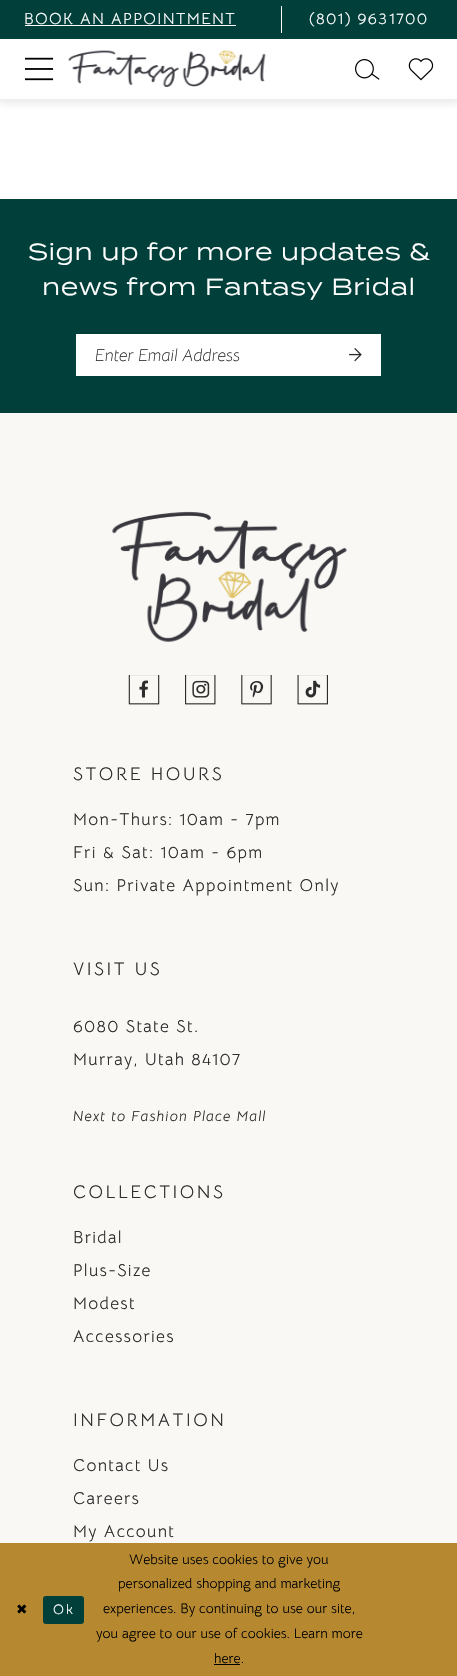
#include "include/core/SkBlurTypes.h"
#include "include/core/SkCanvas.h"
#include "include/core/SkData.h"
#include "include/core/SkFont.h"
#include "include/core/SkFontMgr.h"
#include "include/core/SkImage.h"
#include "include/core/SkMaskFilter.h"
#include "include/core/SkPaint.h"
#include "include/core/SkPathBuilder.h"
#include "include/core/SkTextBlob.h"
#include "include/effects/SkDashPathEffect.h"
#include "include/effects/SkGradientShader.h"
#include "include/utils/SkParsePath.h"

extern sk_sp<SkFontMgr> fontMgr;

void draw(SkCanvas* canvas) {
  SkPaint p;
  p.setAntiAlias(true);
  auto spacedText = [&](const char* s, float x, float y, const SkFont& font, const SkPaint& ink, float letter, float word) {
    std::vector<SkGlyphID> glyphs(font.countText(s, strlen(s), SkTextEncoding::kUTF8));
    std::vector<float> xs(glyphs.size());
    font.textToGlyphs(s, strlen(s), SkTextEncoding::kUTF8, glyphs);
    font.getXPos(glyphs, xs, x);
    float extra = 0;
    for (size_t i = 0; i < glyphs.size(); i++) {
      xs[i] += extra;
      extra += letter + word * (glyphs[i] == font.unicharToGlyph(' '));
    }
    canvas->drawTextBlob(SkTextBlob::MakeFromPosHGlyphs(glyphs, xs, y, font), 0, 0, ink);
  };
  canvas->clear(SK_ColorWHITE);
  p.setColor(SkColorSetARGB(26, 30, 30, 30));
  p.setMaskFilter(SkMaskFilter::MakeBlur(kNormal_SkBlurStyle, 4));
  canvas->drawRect(SkRect::MakeLTRB(-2, -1, 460, 103), p);
  p.setMaskFilter(nullptr);
  p.setColor(SK_ColorWHITE);
  canvas->drawRect(SkRect::MakeLTRB(0, 39, 457, 99), p);
  p.setColor(SkColorSetRGB(1, 63, 58));
  canvas->drawRect(SkRect::MakeLTRB(0, 0, 457, 39), p);
  p.setColor(SK_ColorWHITE);
  canvas->drawRect(SkRect::MakeLTRB(25, 25, 236, 26), p);
  canvas->drawRect(SkRect::MakeLTRB(281, 6, 282, 33), p);
  canvas->drawImageRect(SkImages::DeferredFromEncodedData(SkData::MakeFromFileName("images/1.png")), SkRect::MakeLTRB(25, 57, 54, 81), SkSamplingOptions());
  canvas->drawImageRect(SkImages::DeferredFromEncodedData(SkData::MakeFromFileName("images/2.png")), SkRect::MakeLTRB(68, 50, 266, 87), SkSamplingOptions());
  canvas->drawImageRect(SkImages::DeferredFromEncodedData(SkData::MakeFromFileName("images/3.png")), SkRect::MakeLTRB(355, 59, 380, 80), SkSamplingOptions());
  canvas->drawImageRect(SkImages::DeferredFromEncodedData(SkData::MakeFromFileName("images/4.png")), SkRect::MakeLTRB(408, 58, 434, 81), SkSamplingOptions());
  p.setColor(SkColorSetRGB(1, 63, 58));
  canvas->drawRect(SkRect::MakeLTRB(0, 199, 457, 413), p);
  p.setColor(SK_ColorWHITE);
  canvas->drawRect(SkRect::MakeLTRB(76, 334, 381, 376), p);
  canvas->drawImageRect(SkImages::DeferredFromEncodedData(SkData::MakeFromFileName("images/5.png")), SkRect::MakeLTRB(349, 348, 362, 362), SkSamplingOptions());
  p.setColor(SkColorSetRGB(249, 248, 244));
  canvas->drawRect(SkRect::MakeLTRB(0, 413, 457, 1543), p);
  canvas->drawImageRect(SkImages::DeferredFromEncodedData(SkData::MakeFromFileName("images/6.png")), SkRect::MakeLTRB(112, 511, 347, 642), SkSamplingOptions());
  canvas->drawImageRect(SkImages::DeferredFromEncodedData(SkData::MakeFromFileName("images/7.png")), SkRect::MakeLTRB(128, 675, 160, 705), SkSamplingOptions());
  canvas->drawImageRect(SkImages::DeferredFromEncodedData(SkData::MakeFromFileName("images/8.png")), SkRect::MakeLTRB(185, 675, 216, 705), SkSamplingOptions());
  canvas->drawImageRect(SkImages::DeferredFromEncodedData(SkData::MakeFromFileName("images/9.png")), SkRect::MakeLTRB(241, 675, 272, 705), SkSamplingOptions());
  canvas->drawImageRect(SkImages::DeferredFromEncodedData(SkData::MakeFromFileName("images/10.png")), SkRect::MakeLTRB(297, 675, 328, 705), SkSamplingOptions());
  p.setColor(SkColorSetRGB(182, 137, 49));
  canvas->drawRect(SkRect::MakeLTRB(0, 1543, 457, 1676), p);
  p.setColor(SkColorSetRGB(1, 63, 58));
  canvas->drawRoundRect(SkRect::MakeLTRB(43, 1596, 84, 1624), 3, 3, p);
  p.setColor(SK_ColorBLACK);
  canvas->drawRect(SkRect::MakeLTRB(214, 1664, 240, 1665), p);
  SkFont font1(fontMgr->matchFamilyStyle("Bellota Text", SkFontStyle::Normal()), 15.9f);
  font1.setSubpixel(true);
  p.setColor(SK_ColorWHITE);
  spacedText("BOOK AN APPOINTMENT", 24, 24, font1, p, 1.3f, 0);
  spacedText("(801) 963‑1700", 309, 24, font1, p, 1.3f, 0);
  SkFont font2(fontMgr->matchFamilyStyle("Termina", SkFontStyle::Normal()), 23.2f);
  font2.setSubpixel(true);
  spacedText("Sign up for more updates &", 28, 260, font2, p, 0.45f, 0);
  spacedText("news from Fantasy Bridal", 42, 295, font2, p, 0.45f, 0);
  SkFont font3(fontMgr->matchFamilyStyle("Bellota Text", SkFontStyle(300, SkFontStyle::kNormal_Width, SkFontStyle::kItalic_Slant)), 17.1f);
  font3.setSubpixel(true);
  p.setColor(SkColorSetRGB(45, 45, 45));
  canvas->drawString("Enter Email Address", 95, 361, font3, p);
  SkFont font4(fontMgr->matchFamilyStyle("Bellota Text", SkFontStyle::Normal()), 18.25f);
  font4.setSubpixel(true);
  spacedText("STORE HOURS", 73, 780, font4, p, 2.5f, 0);
  SkFont font5(fontMgr->matchFamilyStyle("Bellota Text", SkFontStyle::Normal()), 17.1f);
  font5.setSubpixel(true);
  spacedText("Mon-Thurs: 10am - 7pm", 73, 825, font5, p, 1.3f, 0);
  spacedText("Fri & Sat: 10am - 6pm", 73, 858, font5, p, 1.3f, 0);
  spacedText("Sun: Private Appointment Only", 73, 891, font5, p, 1.3f, 0);
  spacedText("VISIT US", 73, 975, font4, p, 2.5f, 0);
  spacedText("6080 State St.", 73, 1032, font5, p, 1.3f, 0);
  spacedText("Murray, Utah 84107", 73, 1065, font5, p, 1.3f, 0);
  SkFont font6(fontMgr->matchFamilyStyle("Bellota Text", SkFontStyle::Italic()), 14.6f);
  font6.setSubpixel(true);
  spacedText("Next to Fashion Place Mall", 73, 1121, font6, p, 1.1f, 0);
  spacedText("COLLECTIONS", 73, 1198, font4, p, 2.5f, 0);
  spacedText("Bridal", 73, 1243, font5, p, 1.3f, 0);
  spacedText("Plus-Size", 73, 1276, font5, p, 1.3f, 0);
  spacedText("Modest", 73, 1309, font5, p, 1.3f, 0);
  spacedText("Accessories", 73, 1342, font5, p, 1.3f, 0);
  spacedText("INFORMATION", 73, 1426, font4, p, 2.5f, 0);
  spacedText("Contact Us", 73, 1471, font5, p, 1.3f, 0);
  spacedText("Careers", 73, 1504, font5, p, 1.3f, 0);
  spacedText("My Account", 73, 1537, font5, p, 1.3f, 0);
  SkFont font7(fontMgr->matchFamilyStyle("DejaVu Sans", SkFontStyle::Normal()), 13.75f);
  font7.setSubpixel(true);
  p.setColor(SK_ColorBLACK);
  spacedText("✖", 16, 1614, font7, p, 2, 0);
  SkFont font8(fontMgr->matchFamilyStyle("Bellota Text", SkFontStyle::Normal()), 13.75f);
  font8.setSubpixel(true);
  p.setColor(SK_ColorWHITE);
  spacedText("Ok", 53, 1614, font8, p, 2, 0);
  p.setColor(SK_ColorBLACK);
  canvas->drawString("Website uses cookies to give you", 129, 1564, font8, p);
  canvas->drawString("personalized shopping and marketing", 118, 1588, font8, p);
  canvas->drawString("experiences. By continuing to use our site,", 103, 1613, font8, p);
  canvas->drawString("you agree to our use of cookies. Learn more", 96, 1638, font8, p);
  canvas->drawString("here.", 214, 1663, font8, p);
}
